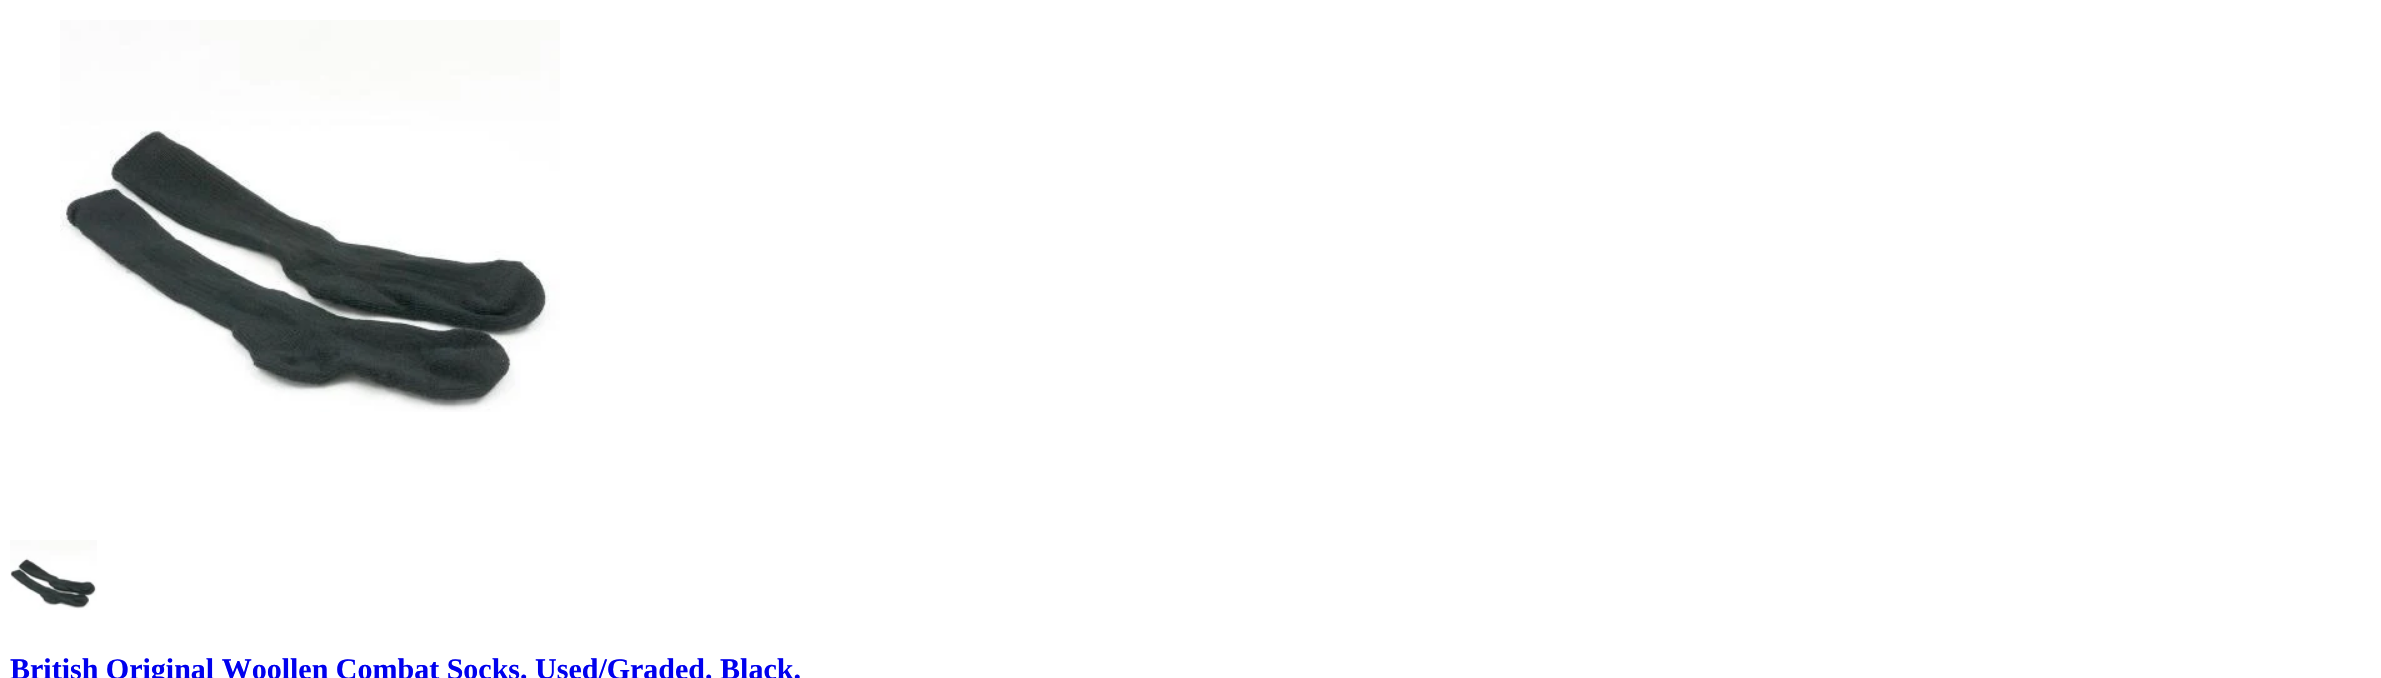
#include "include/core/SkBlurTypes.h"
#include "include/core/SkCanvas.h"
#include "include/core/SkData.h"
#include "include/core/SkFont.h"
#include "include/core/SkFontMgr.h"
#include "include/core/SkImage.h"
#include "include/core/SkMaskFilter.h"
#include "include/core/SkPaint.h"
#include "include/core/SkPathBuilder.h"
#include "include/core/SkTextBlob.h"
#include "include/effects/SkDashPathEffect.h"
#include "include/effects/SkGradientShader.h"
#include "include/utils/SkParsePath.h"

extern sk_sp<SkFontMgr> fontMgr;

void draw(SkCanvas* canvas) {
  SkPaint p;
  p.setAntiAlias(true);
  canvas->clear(SK_ColorWHITE);
  canvas->drawImageRect(SkImages::DeferredFromEncodedData(SkData::MakeFromFileName("images/1.png")), SkRect::MakeLTRB(60, 20, 560, 412), SkSamplingOptions());
  canvas->drawImageRect(SkImages::DeferredFromEncodedData(SkData::MakeFromFileName("images/2.png")), SkRect::MakeLTRB(10, 540, 97, 610), SkSamplingOptions());
  SkFont font1(fontMgr->matchFamilyStyle("Liberation Serif", SkFontStyle::Bold()), 30);
  font1.setSubpixel(true);
  p.setColor(SkColorSetRGB(0, 0, 238));
  canvas->drawString("British Original Woollen Combat Socks. Used/Graded. Black.", 10, 679, font1, p);
}
